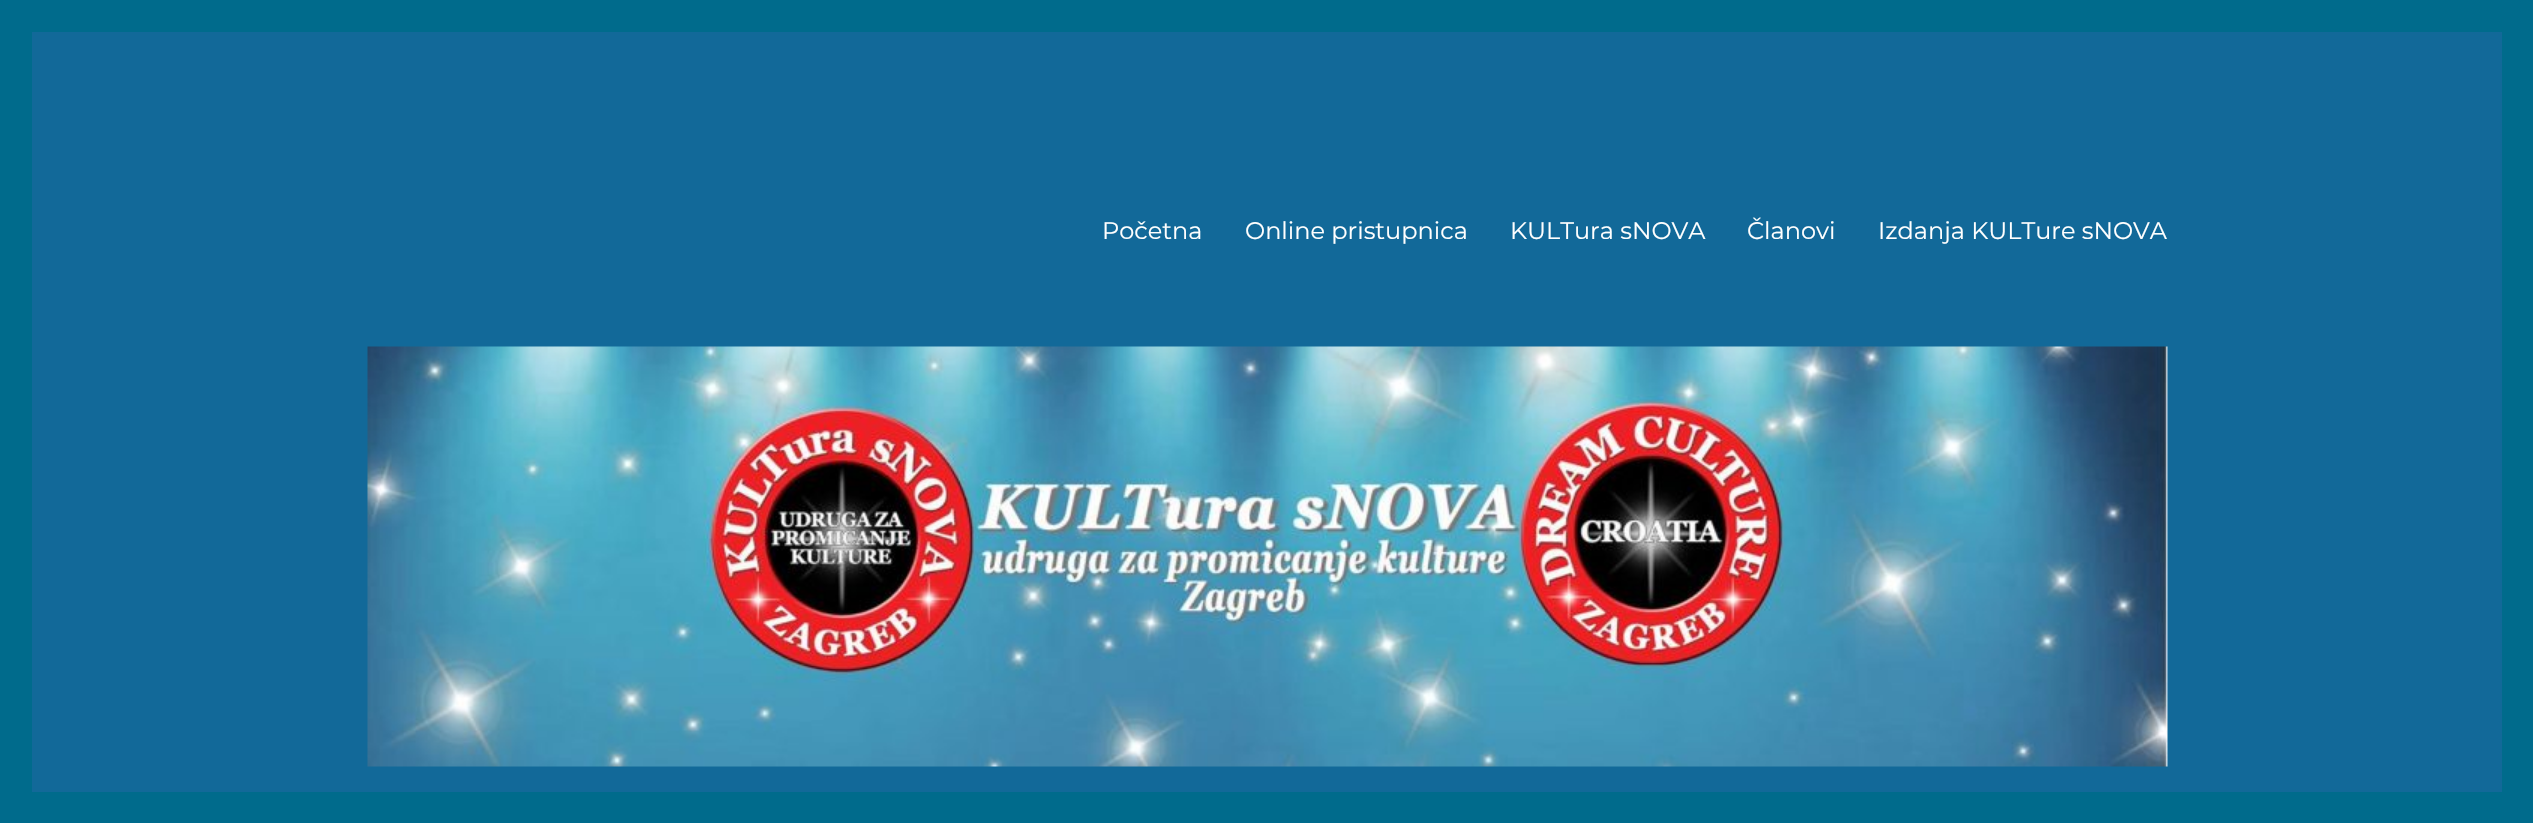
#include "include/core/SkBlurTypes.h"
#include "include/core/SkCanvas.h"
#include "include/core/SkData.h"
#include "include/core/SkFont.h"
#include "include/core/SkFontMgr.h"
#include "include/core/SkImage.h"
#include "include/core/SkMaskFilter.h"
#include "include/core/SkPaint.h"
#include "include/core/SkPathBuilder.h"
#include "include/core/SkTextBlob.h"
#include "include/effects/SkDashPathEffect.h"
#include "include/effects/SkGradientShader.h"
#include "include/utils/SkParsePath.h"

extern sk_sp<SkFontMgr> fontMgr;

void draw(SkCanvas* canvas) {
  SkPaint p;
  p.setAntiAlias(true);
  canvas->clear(SkColorSetRGB(0, 107, 140));
  p.setColor(SkColorSetRGB(18, 105, 153));
  canvas->drawRect(SkRect::MakeLTRB(32, 32, 2502, 792), p);
  canvas->drawImageRect(SkImages::DeferredFromEncodedData(SkData::MakeFromFileName("images/1.png")), SkRect::MakeLTRB(367, 346, 2168, 767), SkSamplingOptions());
  SkFont font1(fontMgr->matchFamilyStyle("Montserrat", SkFontStyle::Normal()), 24);
  font1.setSubpixel(true);
  p.setColor(SK_ColorWHITE);
  canvas->drawString("Početna", 1102, 239, font1, p);
  canvas->drawString("Online pristupnica", 1245, 239, font1, p);
  canvas->drawString("KULTura sNOVA", 1510, 239, font1, p);
  canvas->drawString("Članovi", 1747, 239, font1, p);
  canvas->drawString("Izdanja KULTure sNOVA", 1878, 239, font1, p);
}
